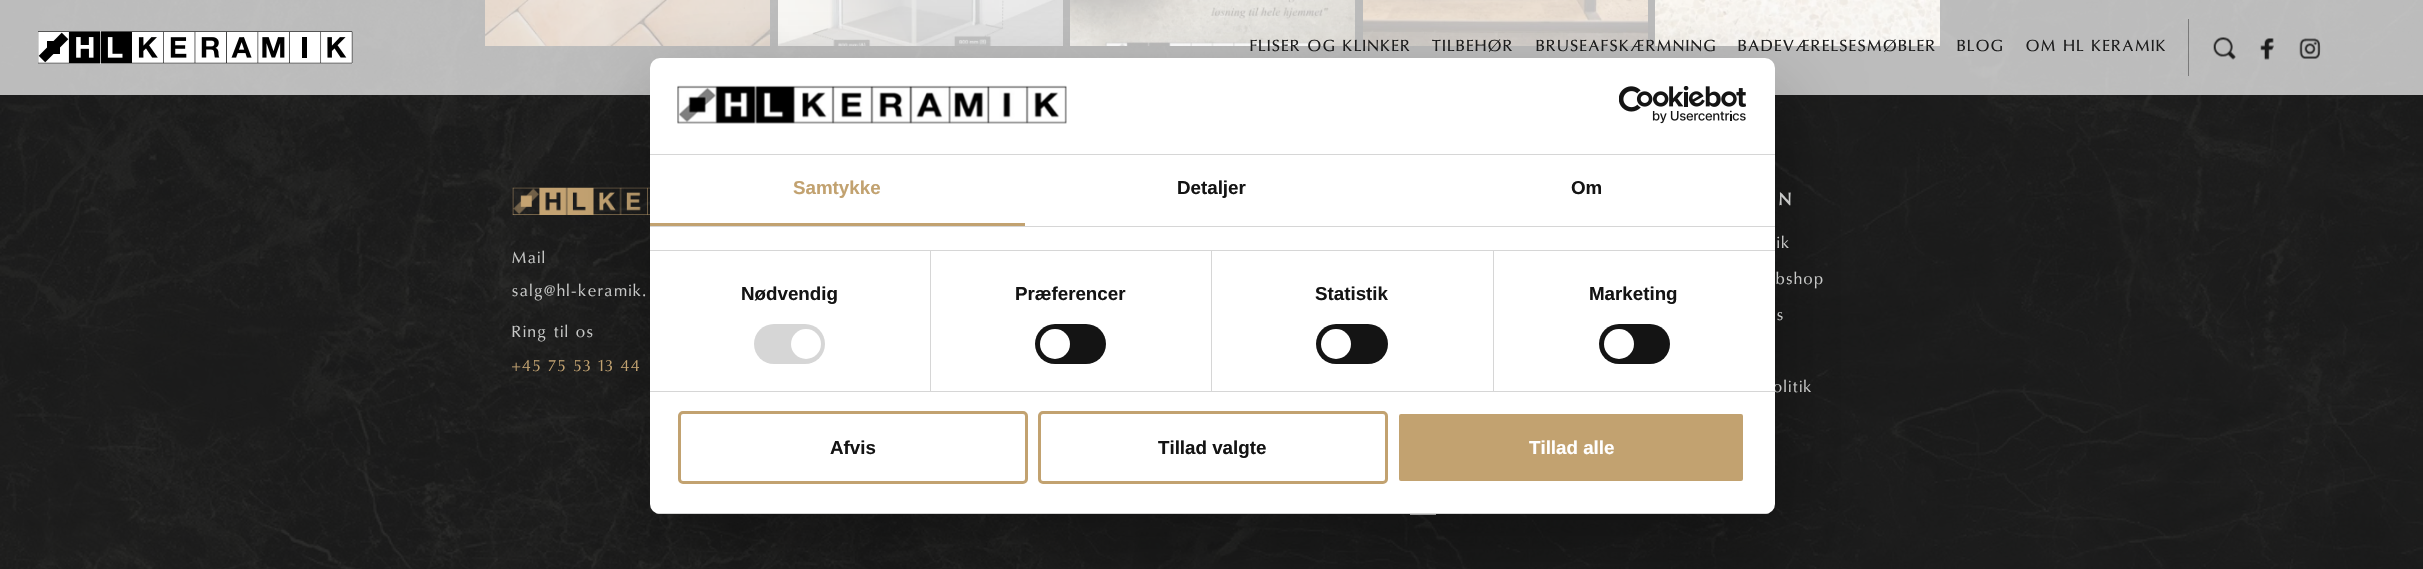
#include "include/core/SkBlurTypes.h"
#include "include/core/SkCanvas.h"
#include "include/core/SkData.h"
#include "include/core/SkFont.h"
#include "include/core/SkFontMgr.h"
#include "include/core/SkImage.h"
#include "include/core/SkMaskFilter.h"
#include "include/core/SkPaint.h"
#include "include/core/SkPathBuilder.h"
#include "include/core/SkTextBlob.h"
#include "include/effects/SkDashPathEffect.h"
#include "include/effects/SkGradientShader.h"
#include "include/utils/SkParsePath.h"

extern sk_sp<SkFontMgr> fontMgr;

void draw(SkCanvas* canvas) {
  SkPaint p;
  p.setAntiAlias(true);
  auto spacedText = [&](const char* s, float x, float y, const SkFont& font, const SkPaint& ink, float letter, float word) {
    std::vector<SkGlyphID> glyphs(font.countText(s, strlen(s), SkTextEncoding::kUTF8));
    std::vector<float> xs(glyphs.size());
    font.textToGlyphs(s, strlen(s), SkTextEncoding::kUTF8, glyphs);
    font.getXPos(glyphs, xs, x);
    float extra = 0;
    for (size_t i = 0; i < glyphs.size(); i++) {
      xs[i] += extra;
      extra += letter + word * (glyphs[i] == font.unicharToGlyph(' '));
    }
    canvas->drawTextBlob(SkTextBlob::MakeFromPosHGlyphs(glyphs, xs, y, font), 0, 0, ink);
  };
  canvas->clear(SK_ColorWHITE);
  canvas->drawImageRect(SkImages::DeferredFromEncodedData(SkData::MakeFromFileName("images/5.png")), SkRect::MakeLTRB(0, 0, 2423, 569), SkSamplingOptions());
  canvas->drawImageRect(SkImages::DeferredFromEncodedData(SkData::MakeFromFileName("images/6.png")), SkRect::MakeLTRB(485, 0, 770, 46), SkSamplingOptions());
  canvas->drawImageRect(SkImages::DeferredFromEncodedData(SkData::MakeFromFileName("images/7.png")), SkRect::MakeLTRB(778, 0, 1063, 46), SkSamplingOptions());
  canvas->drawImageRect(SkImages::DeferredFromEncodedData(SkData::MakeFromFileName("images/8.png")), SkRect::MakeLTRB(1070, 0, 1355, 46), SkSamplingOptions());
  canvas->drawImageRect(SkImages::DeferredFromEncodedData(SkData::MakeFromFileName("images/9.png")), SkRect::MakeLTRB(1363, 0, 1648, 46), SkSamplingOptions());
  canvas->drawImageRect(SkImages::DeferredFromEncodedData(SkData::MakeFromFileName("images/10.png")), SkRect::MakeLTRB(1655, 0, 1940, 46), SkSamplingOptions());
  p.setColor(SkColorSetARGB(179, 255, 255, 255));
  canvas->drawRect(SkRect::MakeLTRB(0, 0, 2423, 95), p);
  canvas->drawImageRect(SkImages::DeferredFromEncodedData(SkData::MakeFromFileName("images/1.png")), SkRect::MakeLTRB(38, 31, 353, 64), SkSamplingOptions());
  p.setColor(SkColorSetARGB(107, 28, 28, 28));
  canvas->drawRect(SkRect::MakeLTRB(2188, 19, 2189, 76), p);
  canvas->drawImageRect(SkImages::DeferredFromEncodedData(SkData::MakeFromFileName("images/2.png")), SkRect::MakeLTRB(2213, 37, 2236, 60), SkSamplingOptions());
  canvas->drawImageRect(SkImages::DeferredFromEncodedData(SkData::MakeFromFileName("images/3.png")), SkRect::MakeLTRB(2260, 38, 2274, 60), SkSamplingOptions());
  canvas->drawImageRect(SkImages::DeferredFromEncodedData(SkData::MakeFromFileName("images/4.png")), SkRect::MakeLTRB(2299, 38, 2321, 59), SkSamplingOptions());
  canvas->drawImageRect(SkImages::DeferredFromEncodedData(SkData::MakeFromFileName("images/11.png")), SkRect::MakeLTRB(512, 187, 650, 215), SkSamplingOptions());
  p.setColor(SkColorSetARGB(204, 243, 243, 243));
  canvas->drawRect(SkRect::MakeLTRB(1410, 514, 1436, 515), p);
  p.setColor(SkColorSetARGB(77, 0, 0, 0));
  p.setMaskFilter(SkMaskFilter::MakeBlur(kNormal_SkBlurStyle, 42.5f));
  canvas->drawRoundRect(SkRect::MakeLTRB(650, 98, 1775, 554), 10, 10, p);
  p.setMaskFilter(nullptr);
  SkFont font1(fontMgr->matchFamilyStyle("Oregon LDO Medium", SkFontStyle(500, SkFontStyle::kNormal_Width, SkFontStyle::kUpright_Slant)), 16.25f);
  font1.setSubpixel(true);
  p.setColor(SkColorSetRGB(28, 28, 28));
  spacedText("FLISER OG KLINKER", 1250, 51, font1, p, 1.9f, 0);
  spacedText("TILBEHØR", 1432, 51, font1, p, 1.9f, 0);
  spacedText("BRUSEAFSKÆRMNING", 1536, 51, font1, p, 1.9f, 0);
  spacedText("BADEVÆRELSESMØBLER", 1738, 51, font1, p, 1.9f, 0);
  spacedText("BLOG", 1957, 51, font1, p, 1.9f, 0);
  spacedText("OM HL KERAMIK", 2026, 51, font1, p, 1.9f, 0);
  SkFont font2(fontMgr->matchFamilyStyle("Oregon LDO", SkFontStyle::Normal()), 16.25f);
  font2.setSubpixel(true);
  p.setColor(SkColorSetRGB(200, 201, 200));
  spacedText("Mail", 512, 263, font2, p, 1.9f, 0);
  spacedText("salg", 512, 296, font2, p, 1.9f, 0);
  spacedText("@hl-keramik.", 544, 296, font2, p, 1.9f, 0);
  spacedText("Ring til os", 512, 337, font2, p, 1.9f, 0);
  p.setColor(SkColorSetRGB(194, 162, 112));
  spacedText("+45 75 53 13 44", 512, 371, font2, p, 1.9f, 0);
  SkFont font3(fontMgr->matchFamilyStyle("Oregon LDO", SkFontStyle::Bold()), 18);
  font3.setSubpixel(true);
  p.setColor(SkColorSetRGB(200, 201, 200));
  spacedText("N", 1779, 205, font3, p, 1.9f, 0);
  spacedText("ik", 1777, 248, font2, p, 1.9f, 0);
  spacedText("bshop", 1776, 284, font2, p, 1.9f, 0);
  spacedText("s", 1777, 320, font2, p, 1.9f, 0);
  spacedText("olitik", 1773, 392, font2, p, 1.9f, 0);
  p.setColor(SK_ColorWHITE);
  canvas->drawRoundRect(SkRect::MakeLTRB(650, 58, 1775, 514), 10, 10, p);
  p.setColor(SkColorSetRGB(214, 214, 214));
  canvas->drawRect(SkRect::MakeLTRB(650, 154, 1775, 155), p);
  canvas->drawImageRect(SkImages::DeferredFromEncodedData(SkData::MakeFromFileName("images/12.png")), SkRect::MakeLTRB(677, 85, 1067, 124), SkSamplingOptions());
  canvas->drawImageRect(SkImages::DeferredFromEncodedData(SkData::MakeFromFileName("images/13.png")), SkRect::MakeLTRB(1619, 86, 1746, 124), SkSamplingOptions());
  canvas->drawRect(SkRect::MakeLTRB(650, 226, 1775, 227), p);
  p.setColor(SkColorSetRGB(194, 162, 112));
  canvas->drawRect(SkRect::MakeLTRB(650, 223, 1025, 226), p);
  SkFont font4(fontMgr->matchFamilyStyle("Liberation Sans", SkFontStyle::Bold()), 18.75f);
  font4.setSubpixel(true);
  canvas->drawString("Samtykke", 793, 194, font4, p);
  p.setColor(SkColorSetRGB(20, 20, 20));
  canvas->drawString("Detaljer", 1177, 194, font4, p);
  canvas->drawString("Om", 1571, 194, font4, p);
  p.setColor(SkColorSetRGB(214, 214, 214));
  canvas->drawRect(SkRect::MakeLTRB(650, 250, 1775, 251), p);
  canvas->drawRect(SkRect::MakeLTRB(650, 391, 1775, 392), p);
  canvas->drawRect(SkRect::MakeLTRB(930, 251, 931, 391), p);
  p.setColor(SkColorSetRGB(20, 20, 20));
  canvas->drawString("Nødvendig", 741, 300, font4, p);
  p.setColor(SkColorSetRGB(214, 214, 214));
  canvas->drawRoundRect(SkRect::MakeLTRB(754, 324, 825, 364), 20, 20, p);
  p.setColor(SK_ColorWHITE);
  canvas->drawCircle(806, 344, 15, p);
  p.setColor(SkColorSetRGB(214, 214, 214));
  canvas->drawRect(SkRect::MakeLTRB(1211, 251, 1212, 391), p);
  p.setColor(SkColorSetRGB(20, 20, 20));
  canvas->drawString("Præferencer", 1015, 300, font4, p);
  canvas->drawRoundRect(SkRect::MakeLTRB(1035, 324, 1106, 364), 20, 20, p);
  p.setColor(SK_ColorWHITE);
  canvas->drawCircle(1055, 344, 15, p);
  p.setColor(SkColorSetRGB(214, 214, 214));
  canvas->drawRect(SkRect::MakeLTRB(1493, 251, 1494, 391), p);
  p.setColor(SkColorSetRGB(20, 20, 20));
  canvas->drawString("Statistik", 1315, 300, font4, p);
  canvas->drawRoundRect(SkRect::MakeLTRB(1316, 324, 1388, 364), 20, 20, p);
  p.setColor(SK_ColorWHITE);
  canvas->drawCircle(1336, 344, 15, p);
  p.setColor(SkColorSetRGB(20, 20, 20));
  canvas->drawString("Marketing", 1589, 300, font4, p);
  canvas->drawRoundRect(SkRect::MakeLTRB(1599, 324, 1670, 364), 20, 20, p);
  p.setColor(SK_ColorWHITE);
  canvas->drawCircle(1619, 344, 15, p);
  canvas->save();
  canvas->clipPath(SkPathBuilder().moveTo(660, 58).lineTo(1765, 58).cubicTo(1770.5f, 58, 1775, 62.5f, 1775, 68).lineTo(1775, 504).cubicTo(1775, 509.5f, 1770.5f, 514, 1765, 514).lineTo(660, 514).cubicTo(654.5f, 514, 650, 509.5f, 650, 504).lineTo(650, 68).cubicTo(650, 62.5f, 654.5f, 58, 660, 58).close().detach(), true);
  p.setColor(SkColorSetRGB(214, 214, 214));
  canvas->drawRect(SkRect::MakeLTRB(650, 513, 1775, 514), p);
  canvas->restore();
  p.setStyle(SkPaint::kStroke_Style);
  p.setStrokeWidth(3);
  p.setColor(SkColorSetRGB(194, 162, 112));
  canvas->drawRoundRect(SkRect::MakeLTRB(679.5f, 412.5f, 1026.5f, 482.5f), 3.5f, 3.5f, p);
  p.setStyle(SkPaint::kFill_Style);
  p.setColor(SkColorSetRGB(20, 20, 20));
  canvas->drawString("Afvis", 830, 454, font4, p);
  p.setStyle(SkPaint::kStroke_Style);
  p.setColor(SkColorSetRGB(194, 162, 112));
  canvas->drawRoundRect(SkRect::MakeLTRB(1039.5f, 412.5f, 1386.5f, 482.5f), 3.5f, 3.5f, p);
  p.setStyle(SkPaint::kFill_Style);
  p.setColor(SkColorSetRGB(20, 20, 20));
  canvas->drawString("Tillad valgte", 1158, 454, font4, p);
  p.setColor(SkColorSetRGB(194, 162, 112));
  canvas->drawRoundRect(SkRect::MakeLTRB(1397.5f, 412.5f, 1744.5f, 482.5f), 3.5f, 3.5f, p);
  p.setStyle(SkPaint::kStroke_Style);
  p.setColor(SK_ColorWHITE);
  canvas->drawRoundRect(SkRect::MakeLTRB(1397.5f, 412.5f, 1744.5f, 482.5f), 3.5f, 3.5f, p);
  p.setStyle(SkPaint::kFill_Style);
  canvas->drawString("Tillad alle", 1529, 454, font4, p);
}
